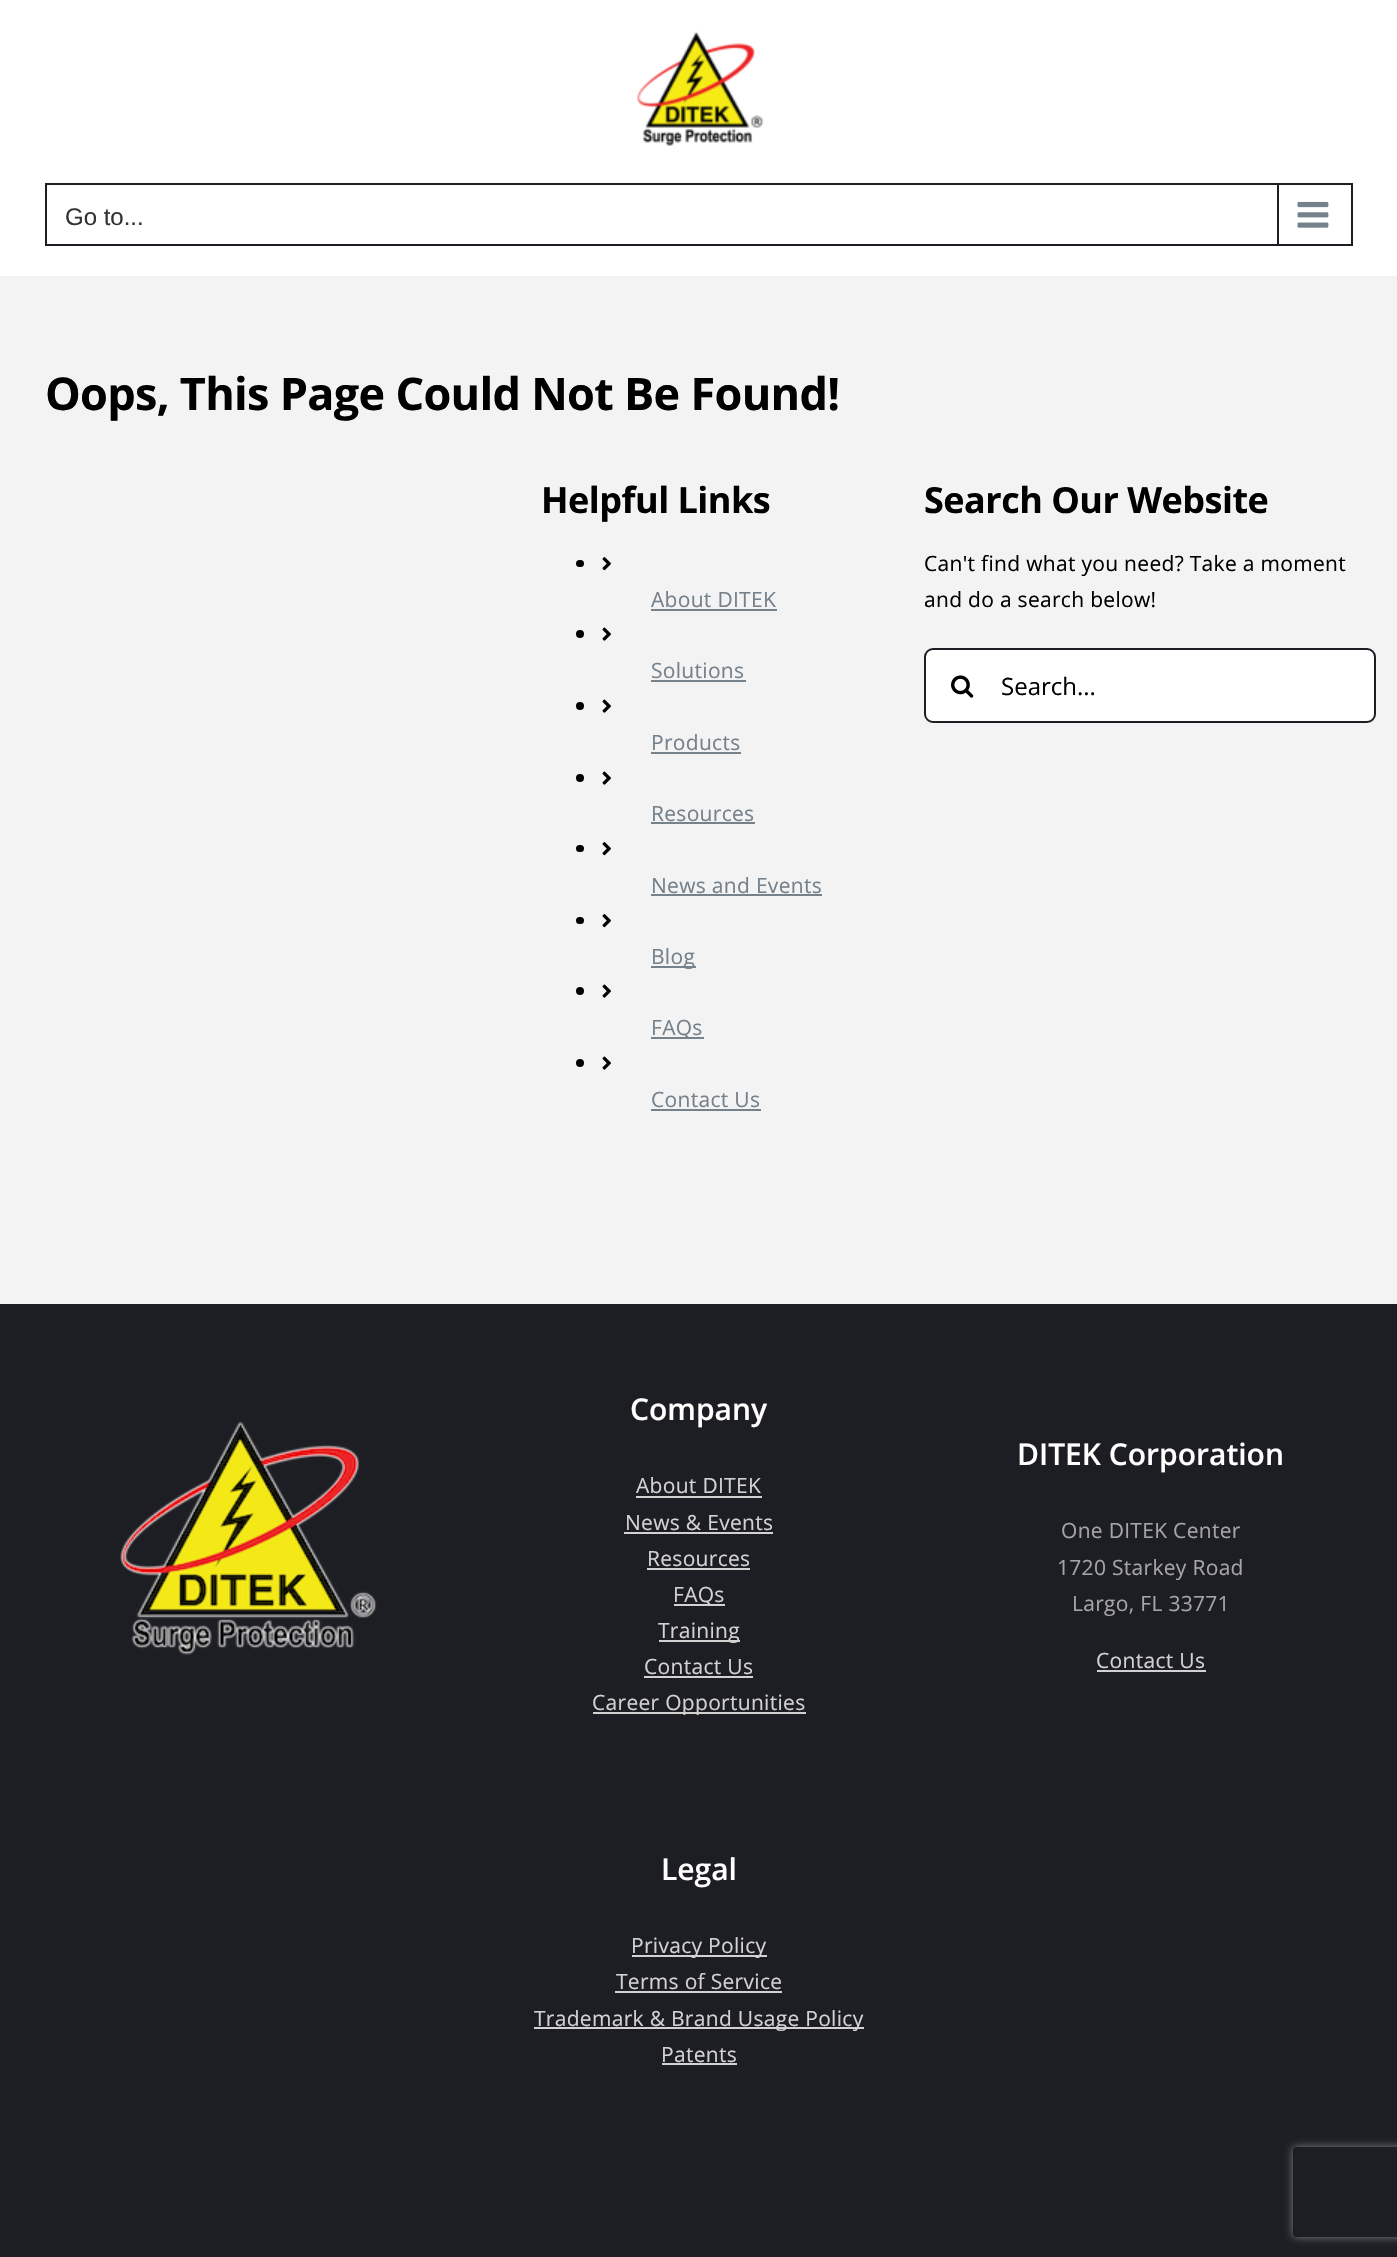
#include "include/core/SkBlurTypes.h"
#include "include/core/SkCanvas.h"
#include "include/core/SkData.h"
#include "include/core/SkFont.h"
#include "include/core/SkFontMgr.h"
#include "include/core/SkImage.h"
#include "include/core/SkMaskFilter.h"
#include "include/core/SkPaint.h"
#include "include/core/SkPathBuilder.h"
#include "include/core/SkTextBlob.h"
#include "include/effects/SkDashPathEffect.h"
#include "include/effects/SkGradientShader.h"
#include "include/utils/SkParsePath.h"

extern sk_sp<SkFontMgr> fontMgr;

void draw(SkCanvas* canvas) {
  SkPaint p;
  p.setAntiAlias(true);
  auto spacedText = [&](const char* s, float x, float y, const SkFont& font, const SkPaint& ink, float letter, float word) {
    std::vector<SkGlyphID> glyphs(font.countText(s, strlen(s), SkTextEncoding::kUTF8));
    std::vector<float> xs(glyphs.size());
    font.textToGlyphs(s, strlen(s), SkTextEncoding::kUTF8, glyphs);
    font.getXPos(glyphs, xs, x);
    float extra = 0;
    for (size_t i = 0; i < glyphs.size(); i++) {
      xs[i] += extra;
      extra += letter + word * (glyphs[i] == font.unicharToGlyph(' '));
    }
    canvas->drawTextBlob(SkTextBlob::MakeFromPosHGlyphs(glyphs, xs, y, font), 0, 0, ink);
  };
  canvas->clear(SkColorSetRGB(243, 243, 243));
  p.setColor(SK_ColorWHITE);
  canvas->drawRect(SkRect::MakeLTRB(0, 0, 1397, 276), p);
  canvas->drawImageRect(SkImages::DeferredFromEncodedData(SkData::MakeFromFileName("images/1.png")), SkRect::MakeLTRB(637, 31, 764, 146), SkSamplingOptions());
  p.setStyle(SkPaint::kStroke_Style);
  p.setStrokeWidth(2);
  p.setColor(SkColorSetRGB(29, 30, 35));
  canvas->drawRect(SkRect::MakeLTRB(46, 184, 1352, 245), p);
  p.setStyle(SkPaint::kFill_Style);
  canvas->drawRect(SkRect::MakeLTRB(1277, 185, 1279, 245), p);
  canvas->drawImageRect(SkImages::DeferredFromEncodedData(SkData::MakeFromFileName("images/2.png")), SkRect::MakeLTRB(1297, 201, 1329, 228), SkSamplingOptions());
  p.setColor(SK_ColorBLACK);
  canvas->drawRoundRect(SkRect::MakeLTRB(576, 560, 584, 567), 3.5f, 3.5f, p);
  canvas->drawImageRect(SkImages::DeferredFromEncodedData(SkData::MakeFromFileName("images/3.png")), SkRect::MakeLTRB(602, 557, 611, 571), SkSamplingOptions());
  p.setColor(SkColorSetRGB(117, 129, 139));
  canvas->drawRect(SkRect::MakeLTRB(651, 609, 777, 611), p);
  p.setColor(SK_ColorBLACK);
  canvas->drawCircle(580, 634, 4, p);
  canvas->drawImageRect(SkImages::DeferredFromEncodedData(SkData::MakeFromFileName("images/4.png")), SkRect::MakeLTRB(602, 627, 611, 641), SkSamplingOptions());
  p.setColor(SkColorSetRGB(117, 129, 139));
  canvas->drawRect(SkRect::MakeLTRB(651, 680, 746, 682), p);
  p.setColor(SK_ColorBLACK);
  canvas->drawCircle(580, 706, 4, p);
  canvas->drawImageRect(SkImages::DeferredFromEncodedData(SkData::MakeFromFileName("images/4.png")), SkRect::MakeLTRB(602, 699, 611, 713), SkSamplingOptions());
  p.setColor(SkColorSetRGB(117, 129, 139));
  canvas->drawRect(SkRect::MakeLTRB(651, 752, 741, 754), p);
  p.setColor(SK_ColorBLACK);
  canvas->drawCircle(580, 778, 4, p);
  canvas->drawImageRect(SkImages::DeferredFromEncodedData(SkData::MakeFromFileName("images/4.png")), SkRect::MakeLTRB(602, 771, 611, 785), SkSamplingOptions());
  p.setColor(SkColorSetRGB(117, 129, 139));
  canvas->drawRect(SkRect::MakeLTRB(651, 822, 755, 824), p);
  p.setColor(SK_ColorBLACK);
  canvas->drawRoundRect(SkRect::MakeLTRB(576, 845, 584, 852), 3.5f, 3.5f, p);
  canvas->drawImageRect(SkImages::DeferredFromEncodedData(SkData::MakeFromFileName("images/3.png")), SkRect::MakeLTRB(602, 842, 611, 856), SkSamplingOptions());
  p.setColor(SkColorSetRGB(117, 129, 139));
  canvas->drawRect(SkRect::MakeLTRB(651, 894, 822, 896), p);
  p.setColor(SK_ColorBLACK);
  canvas->drawRoundRect(SkRect::MakeLTRB(576, 917, 584, 924), 3.5f, 3.5f, p);
  canvas->drawImageRect(SkImages::DeferredFromEncodedData(SkData::MakeFromFileName("images/3.png")), SkRect::MakeLTRB(602, 914, 611, 928), SkSamplingOptions());
  p.setColor(SkColorSetRGB(117, 129, 139));
  canvas->drawRect(SkRect::MakeLTRB(651, 966, 696, 968), p);
  p.setColor(SK_ColorBLACK);
  canvas->drawCircle(580, 991, 4, p);
  canvas->drawImageRect(SkImages::DeferredFromEncodedData(SkData::MakeFromFileName("images/4.png")), SkRect::MakeLTRB(602, 984, 611, 998), SkSamplingOptions());
  p.setColor(SkColorSetRGB(117, 129, 139));
  canvas->drawRect(SkRect::MakeLTRB(651, 1037, 704, 1039), p);
  p.setColor(SK_ColorBLACK);
  canvas->drawCircle(580, 1063, 4, p);
  canvas->drawImageRect(SkImages::DeferredFromEncodedData(SkData::MakeFromFileName("images/4.png")), SkRect::MakeLTRB(602, 1056, 611, 1070), SkSamplingOptions());
  p.setColor(SkColorSetRGB(117, 129, 139));
  canvas->drawRect(SkRect::MakeLTRB(651, 1109, 761, 1111), p);
  p.setColor(SK_ColorWHITE);
  canvas->drawRoundRect(SkRect::MakeLTRB(925, 649, 1375, 722), 8, 8, p);
  p.setStyle(SkPaint::kStroke_Style);
  p.setColor(SkColorSetRGB(29, 30, 35));
  canvas->drawRoundRect(SkRect::MakeLTRB(925, 649, 1375, 722), 8, 8, p);
  canvas->drawImageRect(SkImages::DeferredFromEncodedData(SkData::MakeFromFileName("images/5.png")), SkRect::MakeLTRB(951, 675, 974, 698), SkSamplingOptions());
  p.setStyle(SkPaint::kFill_Style);
  canvas->drawRect(SkRect::MakeLTRB(0, 1304, 1397, 2257), p);
  canvas->drawImageRect(SkImages::DeferredFromEncodedData(SkData::MakeFromFileName("images/6.png")), SkRect::MakeLTRB(120, 1421, 377, 1655), SkSamplingOptions());
  p.setColor(SkColorSetRGB(210, 210, 211));
  canvas->drawRect(SkRect::MakeLTRB(636, 1496, 762, 1498), p);
  canvas->drawRect(SkRect::MakeLTRB(624, 1532, 773, 1534), p);
  canvas->drawRect(SkRect::MakeLTRB(647, 1568, 750, 1570), p);
  canvas->drawRect(SkRect::MakeLTRB(674, 1604, 725, 1606), p);
  canvas->drawRect(SkRect::MakeLTRB(659, 1640, 740, 1642), p);
  canvas->drawRect(SkRect::MakeLTRB(644, 1676, 753, 1678), p);
  canvas->drawRect(SkRect::MakeLTRB(593, 1712, 806, 1714), p);
  canvas->drawRect(SkRect::MakeLTRB(632, 1955, 767, 1957), p);
  canvas->drawRect(SkRect::MakeLTRB(615, 1991, 782, 1993), p);
  canvas->drawRect(SkRect::MakeLTRB(534, 2027, 864, 2029), p);
  canvas->drawRect(SkRect::MakeLTRB(662, 2063, 737, 2065), p);
  canvas->drawRect(SkRect::MakeLTRB(1097, 1670, 1206, 1672), p);
  canvas->save();
  canvas->clipPath(SkPathBuilder(SkPathFillType::kEvenOdd).moveTo(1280, 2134).lineTo(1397, 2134).lineTo(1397, 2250).lineTo(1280, 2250).close().moveTo(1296, 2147).lineTo(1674, 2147).cubicTo(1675.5f, 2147, 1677, 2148.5f, 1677, 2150).lineTo(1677, 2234).cubicTo(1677, 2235.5f, 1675.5f, 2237, 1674, 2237).lineTo(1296, 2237).cubicTo(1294.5f, 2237, 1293, 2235.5f, 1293, 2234).lineTo(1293, 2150).cubicTo(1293, 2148.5f, 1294.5f, 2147, 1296, 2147).close().detach(), true);
  p.setColor(SkColorSetRGB(128, 128, 128));
  p.setMaskFilter(SkMaskFilter::MakeBlur(kNormal_SkBlurStyle, 4));
  canvas->drawRoundRect(SkRect::MakeLTRB(1293, 2147, 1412, 2237), 3, 3, p);
  p.setMaskFilter(nullptr);
  canvas->restore();
  SkFont font1(fontMgr->matchFamilyStyle("Liberation Sans", SkFontStyle::Normal()), 24);
  font1.setSubpixel(true);
  p.setColor(SkColorSetRGB(51, 51, 51));
  canvas->drawString("Go to...", 65, 225, font1, p);
  SkFont font2(fontMgr->matchFamilyStyle("Open Sans", SkFontStyle::Bold()), 45);
  font2.setSubpixel(true);
  p.setColor(SK_ColorBLACK);
  spacedText("Oops, This Page Could Not Be Found!", 45, 410, font2, p, -0.7f, 0);
  SkFont font3(fontMgr->matchFamilyStyle("Open Sans", SkFontStyle::Bold()), 36);
  font3.setSubpixel(true);
  spacedText("Helpful Links", 541, 513, font3, p, -0.5f, 0);
  SkFont font4(fontMgr->matchFamilyStyle("Open Sans", SkFontStyle::Normal()), 21);
  font4.setSubpixel(true);
  p.setColor(SkColorSetRGB(117, 129, 139));
  spacedText("About DITEK", 651, 607, font4, p, 0.3f, 0);
  spacedText("Solutions", 651, 678, font4, p, 0.3f, 0);
  spacedText("Products", 651, 750, font4, p, 0.3f, 0);
  spacedText("Resources", 651, 821, font4, p, 0.3f, 0);
  spacedText("News and Events", 651, 893, font4, p, 0.3f, 0);
  spacedText("Blog", 651, 964, font4, p, 0.3f, 0);
  spacedText("FAQs", 651, 1035, font4, p, 0.3f, 0);
  spacedText("Contact Us", 651, 1107, font4, p, 0.3f, 0);
  p.setColor(SK_ColorBLACK);
  spacedText("Search Our Website", 924, 513, font3, p, -0.5f, 0);
  spacedText("Can't find what you need? Take a moment", 924, 571, font4, p, 0.3f, 0);
  spacedText("and do a search below!", 924, 607, font4, p, 0.3f, 0);
  SkFont font5(fontMgr->matchFamilyStyle("Open Sans", SkFontStyle::Normal()), 24);
  font5.setSubpixel(true);
  canvas->drawString("Search...", 1001, 695, font5, p);
  SkFont font6(fontMgr->matchFamilyStyle("Open Sans", SkFontStyle(600, SkFontStyle::kNormal_Width, SkFontStyle::kUpright_Slant)), 30);
  font6.setSubpixel(true);
  p.setColor(SK_ColorWHITE);
  canvas->drawString("Company", 630, 1420, font6, p);
  p.setColor(SkColorSetRGB(210, 210, 211));
  spacedText("About DITEK", 636, 1493, font4, p, 0.3f, 0);
  spacedText("News & Events", 625, 1530, font4, p, 0.3f, 0);
  spacedText("Resources", 647, 1566, font4, p, 0.3f, 0);
  spacedText("FAQs", 673, 1602, font4, p, 0.3f, 0);
  spacedText("Training", 658, 1638, font4, p, 0.3f, 0);
  spacedText("Contact Us", 644, 1674, font4, p, 0.3f, 0);
  spacedText("Career Opportunities", 592, 1710, font4, p, 0.3f, 0);
  p.setColor(SK_ColorWHITE);
  canvas->drawString("Legal", 661, 1880, font6, p);
  p.setColor(SkColorSetRGB(210, 210, 211));
  spacedText("Privacy Policy", 631, 1953, font4, p, 0.3f, 0);
  spacedText("Terms of Service", 616, 1989, font4, p, 0.3f, 0);
  spacedText("Trademark & Brand Usage Policy", 534, 2026, font4, p, 0.3f, 0);
  spacedText("Patents", 661, 2062, font4, p, 0.3f, 0);
  p.setColor(SK_ColorWHITE);
  canvas->drawString("DITEK Corporation", 1017, 1465, font6, p);
  p.setColor(SkColorSetRGB(165, 165, 167));
  spacedText("One DITEK Center", 1061, 1538, font4, p, 0.3f, 0);
  spacedText("1720 Starkey Road", 1057, 1575, font4, p, 0.3f, 0);
  spacedText("Largo, FL 33771", 1072, 1611, font4, p, 0.3f, 0);
  p.setColor(SkColorSetRGB(210, 210, 211));
  spacedText("Contact Us", 1096, 1668, font4, p, 0.3f, 0);
}
